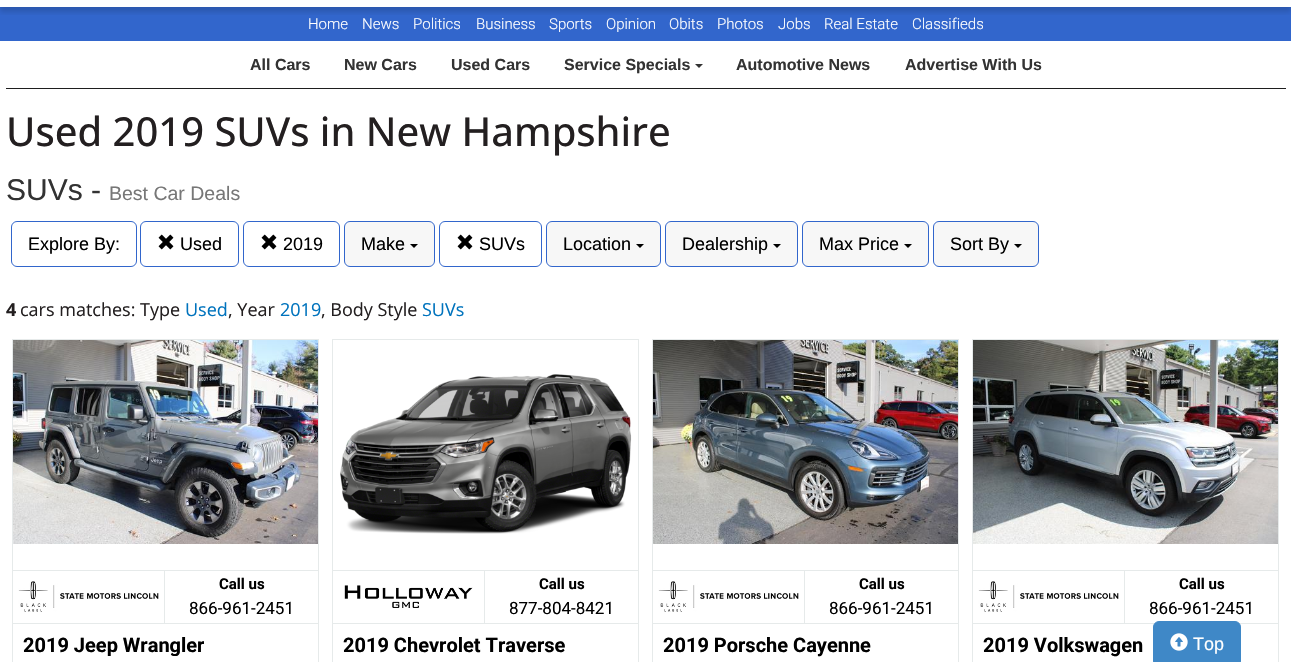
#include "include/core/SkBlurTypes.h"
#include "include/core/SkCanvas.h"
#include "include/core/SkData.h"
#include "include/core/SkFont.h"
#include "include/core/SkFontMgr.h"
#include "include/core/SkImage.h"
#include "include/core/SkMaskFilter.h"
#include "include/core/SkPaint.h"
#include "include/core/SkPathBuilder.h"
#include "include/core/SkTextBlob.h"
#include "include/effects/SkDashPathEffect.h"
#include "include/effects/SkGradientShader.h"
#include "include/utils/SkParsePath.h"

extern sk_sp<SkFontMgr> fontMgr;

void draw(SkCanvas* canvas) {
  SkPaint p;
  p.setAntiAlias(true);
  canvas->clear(SK_ColorWHITE);
  p.setColor(SkColorSetRGB(50, 102, 204));
  canvas->drawRect(SkRect::MakeLTRB(0, 7, 1291, 41), p);
  canvas->save();
  canvas->clipRect(SkRect::MakeLTRB(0, 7, 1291, 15));
  p.setColor(SkColorSetARGB(36, 0, 0, 0));
  p.setMaskFilter(SkMaskFilter::MakeBlur(kNormal_SkBlurStyle, 2.5f));
  canvas->drawRect(SkRect::MakeLTRB(0, -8, 1291, 12), p);
  p.setMaskFilter(nullptr);
  canvas->restore();
  p.setColor(SkColorSetRGB(30, 30, 30));
  canvas->drawRect(SkRect::MakeLTRB(6, 88, 1286, 89), p);
  p.setColor(SkColorSetRGB(51, 51, 51));
  canvas->drawPath(SkPathBuilder().moveTo(695, 64).lineTo(703, 64).lineTo(699, 68).close().detach(), p);
  p.setStyle(SkPaint::kStroke_Style);
  p.setStrokeWidth(1);
  p.setColor(SkColorSetRGB(50, 102, 204));
  canvas->drawRoundRect(SkRect::MakeLTRB(11.5f, 221.5f, 136.5f, 266.5f), 5.5f, 5.5f, p);
  canvas->drawRoundRect(SkRect::MakeLTRB(140.5f, 221.5f, 238.5f, 266.5f), 5.5f, 5.5f, p);
  canvas->drawImageRect(SkImages::DeferredFromEncodedData(SkData::MakeFromFileName("images/1.png")), SkRect::MakeLTRB(158, 234, 174, 250), SkSamplingOptions());
  canvas->drawRoundRect(SkRect::MakeLTRB(243.5f, 221.5f, 339.5f, 266.5f), 5.5f, 5.5f, p);
  canvas->drawImageRect(SkImages::DeferredFromEncodedData(SkData::MakeFromFileName("images/1.png")), SkRect::MakeLTRB(261, 234, 277, 250), SkSamplingOptions());
  p.setStyle(SkPaint::kFill_Style);
  p.setColor(SkColorSetRGB(247, 247, 247));
  canvas->drawRoundRect(SkRect::MakeLTRB(344.5f, 221.5f, 434.5f, 266.5f), 5.5f, 5.5f, p);
  p.setStyle(SkPaint::kStroke_Style);
  p.setColor(SkColorSetRGB(50, 102, 204));
  canvas->drawRoundRect(SkRect::MakeLTRB(344.5f, 221.5f, 434.5f, 266.5f), 5.5f, 5.5f, p);
  p.setStyle(SkPaint::kFill_Style);
  p.setColor(SK_ColorBLACK);
  canvas->drawPath(SkPathBuilder().moveTo(410, 244).lineTo(418, 244).lineTo(414, 248).close().detach(), p);
  p.setStyle(SkPaint::kStroke_Style);
  p.setColor(SkColorSetRGB(50, 102, 204));
  canvas->drawRoundRect(SkRect::MakeLTRB(439.5f, 221.5f, 541.5f, 266.5f), 5.5f, 5.5f, p);
  canvas->drawImageRect(SkImages::DeferredFromEncodedData(SkData::MakeFromFileName("images/1.png")), SkRect::MakeLTRB(457, 234, 473, 250), SkSamplingOptions());
  p.setStyle(SkPaint::kFill_Style);
  p.setColor(SkColorSetRGB(247, 247, 247));
  canvas->drawRoundRect(SkRect::MakeLTRB(546.5f, 221.5f, 660.5f, 266.5f), 5.5f, 5.5f, p);
  p.setStyle(SkPaint::kStroke_Style);
  p.setColor(SkColorSetRGB(50, 102, 204));
  canvas->drawRoundRect(SkRect::MakeLTRB(546.5f, 221.5f, 660.5f, 266.5f), 5.5f, 5.5f, p);
  p.setStyle(SkPaint::kFill_Style);
  p.setColor(SK_ColorBLACK);
  canvas->drawPath(SkPathBuilder().moveTo(636, 244).lineTo(644, 244).lineTo(640, 248).close().detach(), p);
  p.setColor(SkColorSetRGB(247, 247, 247));
  canvas->drawRoundRect(SkRect::MakeLTRB(665.5f, 221.5f, 797.5f, 266.5f), 5.5f, 5.5f, p);
  p.setStyle(SkPaint::kStroke_Style);
  p.setColor(SkColorSetRGB(50, 102, 204));
  canvas->drawRoundRect(SkRect::MakeLTRB(665.5f, 221.5f, 797.5f, 266.5f), 5.5f, 5.5f, p);
  p.setStyle(SkPaint::kFill_Style);
  p.setColor(SK_ColorBLACK);
  canvas->drawPath(SkPathBuilder().moveTo(773, 244).lineTo(781, 244).lineTo(777, 248).close().detach(), p);
  p.setColor(SkColorSetRGB(247, 247, 247));
  canvas->drawRoundRect(SkRect::MakeLTRB(802.5f, 221.5f, 928.5f, 266.5f), 5.5f, 5.5f, p);
  p.setStyle(SkPaint::kStroke_Style);
  p.setColor(SkColorSetRGB(50, 102, 204));
  canvas->drawRoundRect(SkRect::MakeLTRB(802.5f, 221.5f, 928.5f, 266.5f), 5.5f, 5.5f, p);
  p.setStyle(SkPaint::kFill_Style);
  p.setColor(SK_ColorBLACK);
  canvas->drawPath(SkPathBuilder().moveTo(904, 244).lineTo(912, 244).lineTo(908, 248).close().detach(), p);
  p.setColor(SkColorSetRGB(247, 247, 247));
  canvas->drawRoundRect(SkRect::MakeLTRB(933.5f, 221.5f, 1038.5f, 266.5f), 5.5f, 5.5f, p);
  p.setStyle(SkPaint::kStroke_Style);
  p.setColor(SkColorSetRGB(50, 102, 204));
  canvas->drawRoundRect(SkRect::MakeLTRB(933.5f, 221.5f, 1038.5f, 266.5f), 5.5f, 5.5f, p);
  p.setStyle(SkPaint::kFill_Style);
  p.setColor(SK_ColorBLACK);
  canvas->drawPath(SkPathBuilder().moveTo(1014, 244).lineTo(1022, 244).lineTo(1018, 248).close().detach(), p);
  p.setStyle(SkPaint::kStroke_Style);
  p.setColor(SkColorSetRGB(230, 234, 234));
  canvas->drawRect(SkRect::MakeLTRB(12.5f, 339.5f, 318.5f, 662.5f), p);
  canvas->drawImageRect(SkImages::DeferredFromEncodedData(SkData::MakeFromFileName("images/2.png")), SkRect::MakeLTRB(13, 340, 318, 544), SkSamplingOptions());
  p.setStyle(SkPaint::kFill_Style);
  canvas->drawRect(SkRect::MakeLTRB(13, 570, 318, 571), p);
  canvas->drawRect(SkRect::MakeLTRB(164, 570, 165, 624), p);
  canvas->drawRect(SkRect::MakeLTRB(13, 623, 318, 624), p);
  canvas->drawImageRect(SkImages::DeferredFromEncodedData(SkData::MakeFromFileName("images/3.png")), SkRect::MakeLTRB(18, 581, 159, 612), SkSamplingOptions());
  p.setStyle(SkPaint::kStroke_Style);
  canvas->drawRect(SkRect::MakeLTRB(332.5f, 339.5f, 638.5f, 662.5f), p);
  canvas->drawImageRect(SkImages::DeferredFromEncodedData(SkData::MakeFromFileName("images/4.png")), SkRect::MakeLTRB(340, 374, 632, 534), SkSamplingOptions());
  p.setStyle(SkPaint::kFill_Style);
  canvas->drawRect(SkRect::MakeLTRB(333, 570, 638, 571), p);
  canvas->drawRect(SkRect::MakeLTRB(484, 570, 485, 624), p);
  canvas->drawRect(SkRect::MakeLTRB(333, 623, 638, 624), p);
  canvas->drawImageRect(SkImages::DeferredFromEncodedData(SkData::MakeFromFileName("images/5.png")), SkRect::MakeLTRB(344, 585, 473, 608), SkSamplingOptions());
  p.setStyle(SkPaint::kStroke_Style);
  canvas->drawRect(SkRect::MakeLTRB(652.5f, 339.5f, 958.5f, 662.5f), p);
  canvas->drawImageRect(SkImages::DeferredFromEncodedData(SkData::MakeFromFileName("images/6.png")), SkRect::MakeLTRB(653, 340, 958, 544), SkSamplingOptions());
  p.setStyle(SkPaint::kFill_Style);
  canvas->drawRect(SkRect::MakeLTRB(653, 570, 958, 571), p);
  canvas->drawRect(SkRect::MakeLTRB(804, 570, 805, 624), p);
  canvas->drawRect(SkRect::MakeLTRB(653, 623, 958, 624), p);
  canvas->drawImageRect(SkImages::DeferredFromEncodedData(SkData::MakeFromFileName("images/3.png")), SkRect::MakeLTRB(658, 581, 799, 612), SkSamplingOptions());
  p.setStyle(SkPaint::kStroke_Style);
  canvas->drawRect(SkRect::MakeLTRB(972.5f, 339.5f, 1278.5f, 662.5f), p);
  canvas->drawImageRect(SkImages::DeferredFromEncodedData(SkData::MakeFromFileName("images/7.png")), SkRect::MakeLTRB(973, 340, 1278, 544), SkSamplingOptions());
  p.setStyle(SkPaint::kFill_Style);
  canvas->drawRect(SkRect::MakeLTRB(973, 570, 1278, 571), p);
  canvas->drawRect(SkRect::MakeLTRB(1124, 570, 1125, 624), p);
  canvas->drawRect(SkRect::MakeLTRB(973, 623, 1278, 624), p);
  canvas->drawImageRect(SkImages::DeferredFromEncodedData(SkData::MakeFromFileName("images/3.png")), SkRect::MakeLTRB(978, 581, 1119, 612), SkSamplingOptions());
  p.setColor(SkColorSetRGB(63, 136, 199));
  canvas->drawRoundRect(SkRect::MakeLTRB(1153.5f, 621.5f, 1240.5f, 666.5f), 5.5f, 5.5f, p);
  p.setStyle(SkPaint::kStroke_Style);
  canvas->drawRoundRect(SkRect::MakeLTRB(1153.5f, 621.5f, 1240.5f, 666.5f), 5.5f, 5.5f, p);
  canvas->drawImageRect(SkImages::DeferredFromEncodedData(SkData::MakeFromFileName("images/8.png")), SkRect::MakeLTRB(1170, 633, 1188, 651), SkSamplingOptions());
  SkFont font1(fontMgr->matchFamilyStyle("Roboto", SkFontStyle(300, SkFontStyle::kNormal_Width, SkFontStyle::kUpright_Slant)), 15);
  font1.setSubpixel(true);
  p.setStyle(SkPaint::kFill_Style);
  p.setColor(SK_ColorWHITE);
  canvas->drawString("Home", 308, 29, font1, p);
  canvas->drawString("News", 362, 29, font1, p);
  canvas->drawString("Politics", 413, 29, font1, p);
  canvas->drawString("Business", 476, 29, font1, p);
  canvas->drawString("Sports", 549, 29, font1, p);
  canvas->drawString("Opinion", 606, 29, font1, p);
  canvas->drawString("Obits", 669, 29, font1, p);
  canvas->drawString("Photos", 717, 29, font1, p);
  canvas->drawString("Jobs", 778, 29, font1, p);
  canvas->drawString("Real Estate", 824, 29, font1, p);
  canvas->drawString("Classifieds", 912, 29, font1, p);
  SkFont font2(fontMgr->matchFamilyStyle("Liberation Sans", SkFontStyle::Bold()), 16);
  font2.setSubpixel(true);
  p.setColor(SkColorSetRGB(51, 51, 51));
  canvas->drawString("All Cars", 250, 70, font2, p);
  canvas->drawString("New Cars", 344, 70, font2, p);
  canvas->drawString("Used Cars", 451, 70, font2, p);
  canvas->drawString("Service Specials", 564, 70, font2, p);
  canvas->drawString("Automotive News", 736, 70, font2, p);
  canvas->drawString("Advertise With Us", 905, 70, font2, p);
  SkFont font3(fontMgr->matchFamilyStyle("Open Sans", SkFontStyle(500, SkFontStyle::kNormal_Width, SkFontStyle::kUpright_Slant)), 40);
  font3.setSubpixel(true);
  p.setColor(SkColorSetRGB(35, 31, 32));
  canvas->drawString("Used 2019 SUVs in New Hampshire", 6, 146, font3, p);
  SkFont font4(fontMgr->matchFamilyStyle("Liberation Sans", SkFontStyle::Normal()), 30);
  font4.setSubpixel(true);
  p.setColor(SkColorSetRGB(51, 51, 51));
  canvas->drawString("SUVs -", 6, 200, font4, p);
  SkFont font5(fontMgr->matchFamilyStyle("Liberation Sans", SkFontStyle::Normal()), 19.5f);
  font5.setSubpixel(true);
  p.setColor(SkColorSetRGB(119, 119, 119));
  canvas->drawString("Best Car Deals", 109, 200, font5, p);
  SkFont font6(fontMgr->matchFamilyStyle("Liberation Sans", SkFontStyle::Normal()), 18);
  font6.setSubpixel(true);
  p.setColor(SK_ColorBLACK);
  canvas->drawString("Explore By:", 28, 250, font6, p);
  canvas->drawString("Used", 180, 250, font6, p);
  canvas->drawString("2019", 283, 250, font6, p);
  canvas->drawString("Make", 361, 250, font6, p);
  canvas->drawString("SUVs", 479, 250, font6, p);
  canvas->drawString("Location", 563, 250, font6, p);
  canvas->drawString("Dealership", 682, 250, font6, p);
  canvas->drawString("Max Price", 819, 250, font6, p);
  canvas->drawString("Sort By", 950, 250, font6, p);
  SkFont font7(fontMgr->matchFamilyStyle("Open Sans", SkFontStyle::Bold()), 18);
  font7.setSubpixel(true);
  p.setColor(SkColorSetRGB(35, 31, 32));
  canvas->drawString("4", 6, 316, font7, p);
  SkFont font8(fontMgr->matchFamilyStyle("Open Sans", SkFontStyle::Normal()), 18);
  font8.setSubpixel(true);
  canvas->drawString("cars matches: Type", 20, 316, font8, p);
  p.setColor(SkColorSetRGB(0, 115, 189));
  canvas->drawString("Used", 185, 316, font8, p);
  p.setColor(SkColorSetRGB(35, 31, 32));
  canvas->drawString(", Year", 228, 316, font8, p);
  p.setColor(SkColorSetRGB(0, 115, 189));
  canvas->drawString("2019", 280, 316, font8, p);
  p.setColor(SkColorSetRGB(35, 31, 32));
  canvas->drawString(", Body Style", 321, 316, font8, p);
  p.setColor(SkColorSetRGB(0, 115, 189));
  canvas->drawString("SUVs", 422, 316, font8, p);
  SkFont font9(fontMgr->matchFamilyStyle("Roboto", SkFontStyle::Bold()), 15);
  font9.setSubpixel(true);
  p.setColor(SK_ColorBLACK);
  canvas->drawString("Call us", 219, 589, font9, p);
  SkFont font10(fontMgr->matchFamilyStyle("Roboto", SkFontStyle::Normal()), 17);
  font10.setSubpixel(true);
  canvas->drawString("866-961-2451", 189, 614, font10, p);
  canvas->save();
  canvas->clipRect(SkRect::MakeLTRB(23, 634, 204, 656));
  SkFont font11(fontMgr->matchFamilyStyle("Roboto", SkFontStyle::Bold()), 20);
  font11.setSubpixel(true);
  canvas->drawString("2019 Jeep Wrangler", 23, 652, font11, p);
  canvas->restore();
  canvas->drawString("Call us", 539, 589, font9, p);
  canvas->drawString("877-804-8421", 509, 614, font10, p);
  canvas->drawString("2019 Chevrolet Traverse", 343, 652, font11, p);
  canvas->drawString("Call us", 859, 589, font9, p);
  canvas->drawString("866-961-2451", 829, 614, font10, p);
  canvas->drawString("2019 Porsche Cayenne", 663, 652, font11, p);
  canvas->drawString("Call us", 1179, 589, font9, p);
  canvas->drawString("866-961-2451", 1149, 614, font10, p);
  canvas->drawString("2019 Volkswagen", 983, 652, font11, p);
  p.setColor(SK_ColorWHITE);
  canvas->drawString("Top", 1193, 650, font6, p);
}
